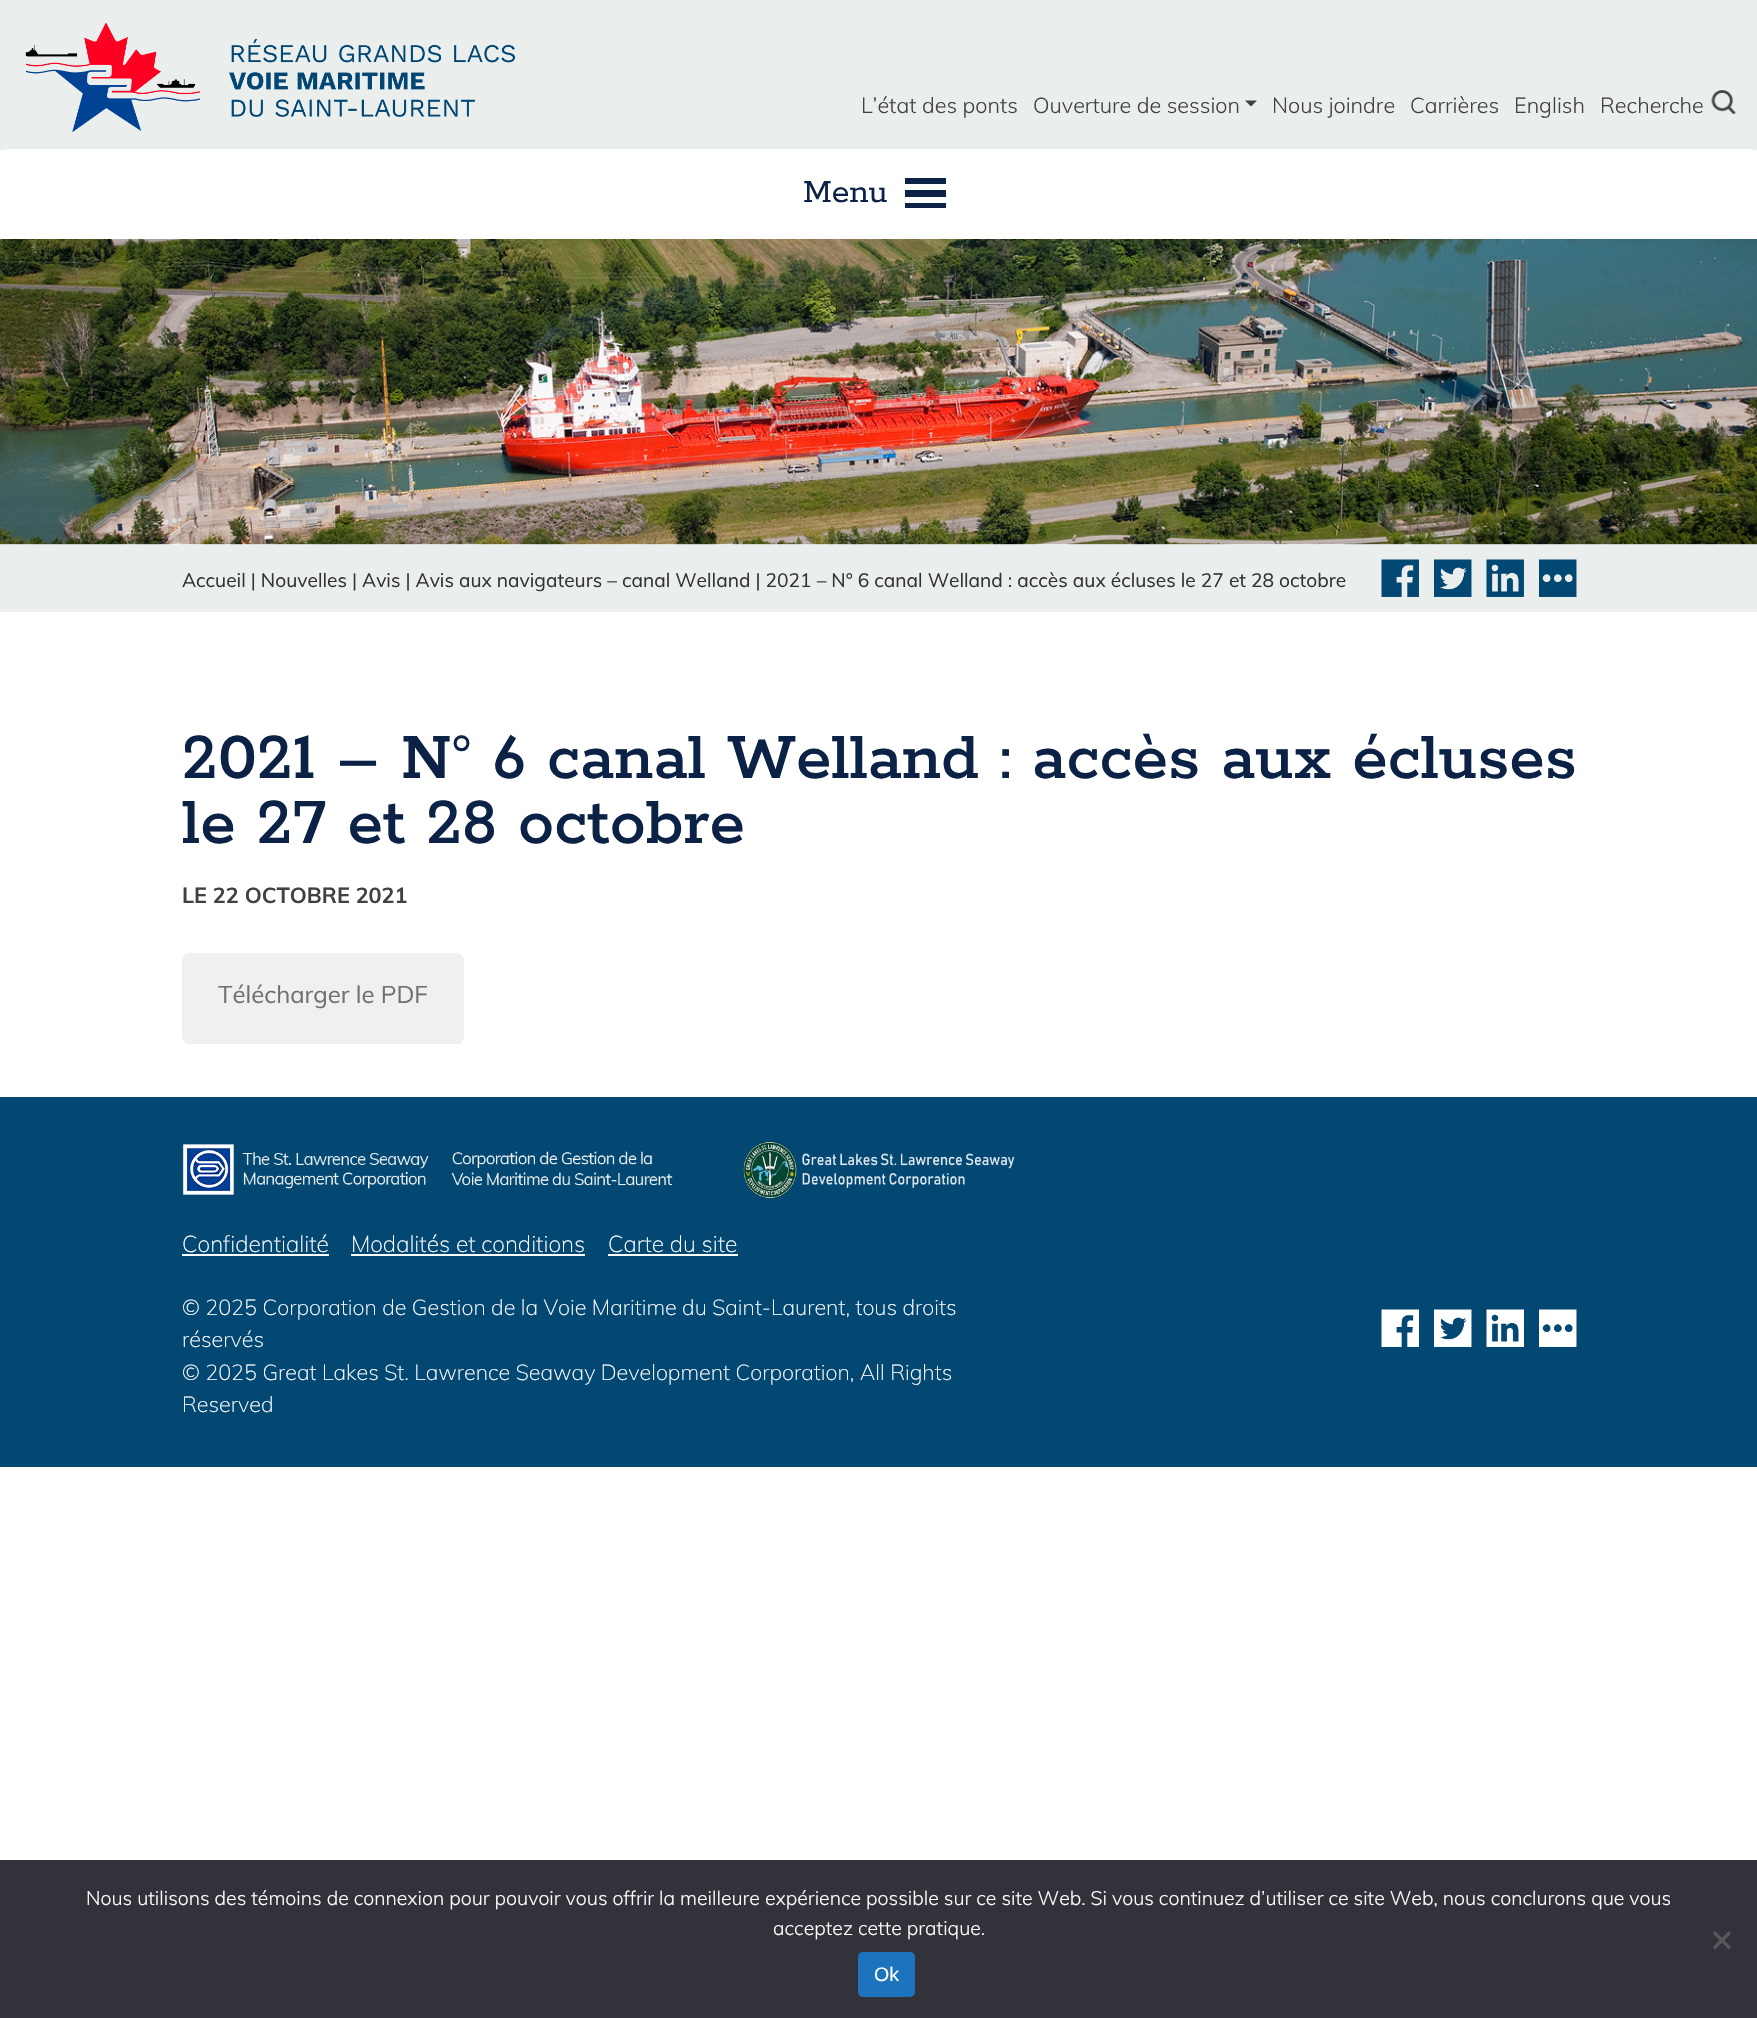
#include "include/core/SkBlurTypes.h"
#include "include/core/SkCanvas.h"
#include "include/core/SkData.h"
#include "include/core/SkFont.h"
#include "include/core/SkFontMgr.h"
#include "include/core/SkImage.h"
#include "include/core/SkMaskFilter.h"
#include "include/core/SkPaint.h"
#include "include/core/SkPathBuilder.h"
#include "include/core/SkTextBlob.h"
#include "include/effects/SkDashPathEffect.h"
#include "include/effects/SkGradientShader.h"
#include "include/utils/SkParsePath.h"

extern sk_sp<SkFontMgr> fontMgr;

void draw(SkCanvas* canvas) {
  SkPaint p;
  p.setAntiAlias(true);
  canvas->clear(SK_ColorWHITE);
  p.setColor(SkColorSetRGB(234, 239, 238));
  canvas->drawRect(SkRect::MakeLTRB(0, 0, 1757, 150), p);
  canvas->drawImageRect(SkImages::DeferredFromEncodedData(SkData::MakeFromFileName("images/1.png")), SkRect::MakeLTRB(25, 22, 515, 133), SkSamplingOptions());
  p.setColor(SkColorSetRGB(65, 65, 65));
  canvas->drawPath(SkPathBuilder().moveTo(1245, 100.5f).lineTo(1257, 100.5f).lineTo(1251, 106.5f).close().detach(), p);
  canvas->drawImageRect(SkImages::DeferredFromEncodedData(SkData::MakeFromFileName("images/2.png")), SkRect::MakeLTRB(1711, 90, 1736, 114), SkSamplingOptions());
  p.setColor(SK_ColorWHITE);
  canvas->drawPath(SkPathBuilder().moveTo(8, 149).lineTo(1750, 149).cubicTo(1754.5f, 149, 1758, 152.5f, 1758, 157).lineTo(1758, 239).lineTo(0, 239).lineTo(0, 157).cubicTo(0, 152.5f, 3.5f, 149, 8, 149).close().detach(), p);
  p.setColor(SkColorSetRGB(11, 34, 70));
  canvas->drawPath(SkPathBuilder().moveTo(905, 208).lineTo(946, 208).lineTo(946, 203).lineTo(905, 203).close().moveTo(905, 178).lineTo(905, 184).lineTo(946, 184).lineTo(946, 178).close().moveTo(905, 197).lineTo(946, 197).lineTo(946, 190).lineTo(905, 190).close().detach(), p);
  canvas->drawImageRect(SkImages::DeferredFromEncodedData(SkData::MakeFromFileName("images/3.png")), SkRect::MakeLTRB(0, 239, 1757, 545), SkSamplingOptions());
  p.setColor(SkColorSetRGB(234, 239, 238));
  canvas->drawRect(SkRect::MakeLTRB(0, 545, 1757, 612), p);
  canvas->drawImageRect(SkImages::DeferredFromEncodedData(SkData::MakeFromFileName("images/4.png")), SkRect::MakeLTRB(1381, 559, 1419, 597), SkSamplingOptions());
  canvas->drawImageRect(SkImages::DeferredFromEncodedData(SkData::MakeFromFileName("images/5.png")), SkRect::MakeLTRB(1434, 559, 1472, 597), SkSamplingOptions());
  canvas->drawImageRect(SkImages::DeferredFromEncodedData(SkData::MakeFromFileName("images/6.png")), SkRect::MakeLTRB(1486, 559, 1524, 597), SkSamplingOptions());
  canvas->drawImageRect(SkImages::DeferredFromEncodedData(SkData::MakeFromFileName("images/7.png")), SkRect::MakeLTRB(1539, 559, 1577, 597), SkSamplingOptions());
  p.setColor(SkColorSetRGB(240, 240, 240));
  canvas->drawRoundRect(SkRect::MakeLTRB(182, 953, 464, 1044), 8, 8, p);
  canvas->drawRect(SkRect::MakeLTRB(186, 1042, 461, 1044), p);
  p.setColor(SkColorSetRGB(2, 72, 115));
  canvas->drawRect(SkRect::MakeLTRB(0, 1097, 1757, 1467), p);
  canvas->drawImageRect(SkImages::DeferredFromEncodedData(SkData::MakeFromFileName("images/8.png")), SkRect::MakeLTRB(182, 1144, 673, 1195), SkSamplingOptions());
  canvas->drawImageRect(SkImages::DeferredFromEncodedData(SkData::MakeFromFileName("images/9.png")), SkRect::MakeLTRB(743, 1141, 1015, 1199), SkSamplingOptions());
  p.setColor(SK_ColorWHITE);
  canvas->drawRect(SkRect::MakeLTRB(182, 1254, 329, 1256), p);
  canvas->drawRect(SkRect::MakeLTRB(351, 1254, 585, 1256), p);
  canvas->drawRect(SkRect::MakeLTRB(608, 1254, 738, 1256), p);
  canvas->drawImageRect(SkImages::DeferredFromEncodedData(SkData::MakeFromFileName("images/10.png")), SkRect::MakeLTRB(1381, 1309, 1419, 1347), SkSamplingOptions());
  canvas->drawImageRect(SkImages::DeferredFromEncodedData(SkData::MakeFromFileName("images/11.png")), SkRect::MakeLTRB(1434, 1309, 1472, 1347), SkSamplingOptions());
  canvas->drawImageRect(SkImages::DeferredFromEncodedData(SkData::MakeFromFileName("images/12.png")), SkRect::MakeLTRB(1486, 1309, 1524, 1347), SkSamplingOptions());
  canvas->drawImageRect(SkImages::DeferredFromEncodedData(SkData::MakeFromFileName("images/13.png")), SkRect::MakeLTRB(1539, 1309, 1577, 1347), SkSamplingOptions());
  p.setColor(SkColorSetRGB(50, 50, 58));
  canvas->drawRect(SkRect::MakeLTRB(0, 1860, 1757, 2018), p);
  p.setColor(SkColorSetRGB(89, 89, 93));
  canvas->drawPath(SkPathBuilder().moveTo(1729, 1931).lineTo(1731, 1933.5f).lineTo(1715, 1949.5f).lineTo(1713, 1947).close().detach(), p);
  canvas->drawPath(SkPathBuilder().moveTo(1713, 1933.5f).lineTo(1715, 1931).lineTo(1731, 1947).lineTo(1729, 1949.5f).close().detach(), p);
  p.setColor(SkColorSetRGB(30, 115, 190));
  canvas->drawRoundRect(SkRect::MakeLTRB(858, 1952, 915, 1997), 5, 5, p);
  SkFont font1(fontMgr->matchFamilyStyle("Muli", SkFontStyle(300, SkFontStyle::kNormal_Width, SkFontStyle::kUpright_Slant)), 21.6f);
  font1.setSubpixel(true);
  p.setColor(SkColorSetRGB(65, 65, 65));
  canvas->drawString("L’état des ponts", 861, 113, font1, p);
  canvas->drawString("Ouverture de session", 1033, 113, font1, p);
  canvas->drawString("Nous joindre", 1272, 113, font1, p);
  canvas->drawString("Carrières", 1410, 113, font1, p);
  canvas->drawString("English", 1514, 113, font1, p);
  canvas->drawString("Recherche", 1600, 113, font1, p);
  SkFont font2(fontMgr->matchFamilyStyle("Rokkitt", SkFontStyle::Normal()), 36);
  font2.setSubpixel(true);
  p.setColor(SkColorSetRGB(11, 34, 70));
  canvas->drawString("Menu", 803, 202, font2, p);
  SkFont font3(fontMgr->matchFamilyStyle("Muli", SkFontStyle::Normal()), 19.2f);
  font3.setSubpixel(true);
  p.setColor(SkColorSetRGB(51, 51, 51));
  canvas->drawString("Accueil | Nouvelles | Avis | Avis aux navigateurs – canal Welland | 2021 – N° 6 canal Welland : accès aux écluses le 27 et 28 octobre", 182, 587, font3, p);
  SkFont font4(fontMgr->matchFamilyStyle("Rokkitt", SkFontStyle(500, SkFontStyle::kNormal_Width, SkFontStyle::kUpright_Slant)), 72);
  font4.setSubpixel(true);
  p.setColor(SkColorSetRGB(11, 34, 70));
  canvas->drawString("2021 – N° 6 canal Welland : accès aux écluses", 182, 778, font4, p);
  canvas->drawString("le 27 et 28 octobre", 182, 843, font4, p);
  SkFont font5(fontMgr->matchFamilyStyle("Muli", SkFontStyle::Bold()), 21.6f);
  font5.setSubpixel(true);
  p.setColor(SkColorSetRGB(65, 65, 65));
  canvas->drawString("LE 22 OCTOBRE 2021", 182, 903, font5, p);
  SkFont font6(fontMgr->matchFamilyStyle("Muli", SkFontStyle::Normal()), 24);
  font6.setSubpixel(true);
  p.setColor(SkColorSetRGB(112, 112, 112));
  canvas->drawString("Télécharger le PDF", 218, 1003, font6, p);
  SkFont font7(fontMgr->matchFamilyStyle("Muli", SkFontStyle(200, SkFontStyle::kNormal_Width, SkFontStyle::kUpright_Slant)), 22.75f);
  font7.setSubpixel(true);
  p.setColor(SK_ColorWHITE);
  canvas->drawString("Confidentialité", 182, 1252, font7, p);
  canvas->drawString("Modalités et conditions", 351, 1252, font7, p);
  canvas->drawString("Carte du site", 608, 1252, font7, p);
  SkFont font8(fontMgr->matchFamilyStyle("Muli", SkFontStyle(200, SkFontStyle::kNormal_Width, SkFontStyle::kUpright_Slant)), 21.6f);
  font8.setSubpixel(true);
  canvas->drawString("© 2025 Corporation de Gestion de la Voie Maritime du Saint-Laurent, tous droits", 182, 1315, font8, p);
  canvas->drawString("réservés", 182, 1347, font8, p);
  canvas->drawString("© 2025 Great Lakes St. Lawrence Seaway Development Corporation, All Rights", 182, 1380, font8, p);
  canvas->drawString("Reserved", 182, 1412, font8, p);
  SkFont font9(fontMgr->matchFamilyStyle("Muli", SkFontStyle(300, SkFontStyle::kNormal_Width, SkFontStyle::kUpright_Slant)), 19.5f);
  font9.setSubpixel(true);
  canvas->drawString("Nous utilisons des témoins de connexion pour pouvoir vous offrir la meilleure expérience possible sur ce site Web. Si vous continuez d’utiliser ce site Web, nous conclurons que vous", 86, 1905, font9, p);
  canvas->drawString("acceptez cette pratique.", 773, 1935, font9, p);
  SkFont font10(fontMgr->matchFamilyStyle("Liberation Sans", SkFontStyle::Normal()), 19.5f);
  font10.setSubpixel(true);
  canvas->drawString("Ok", 874, 1981, font10, p);
}
